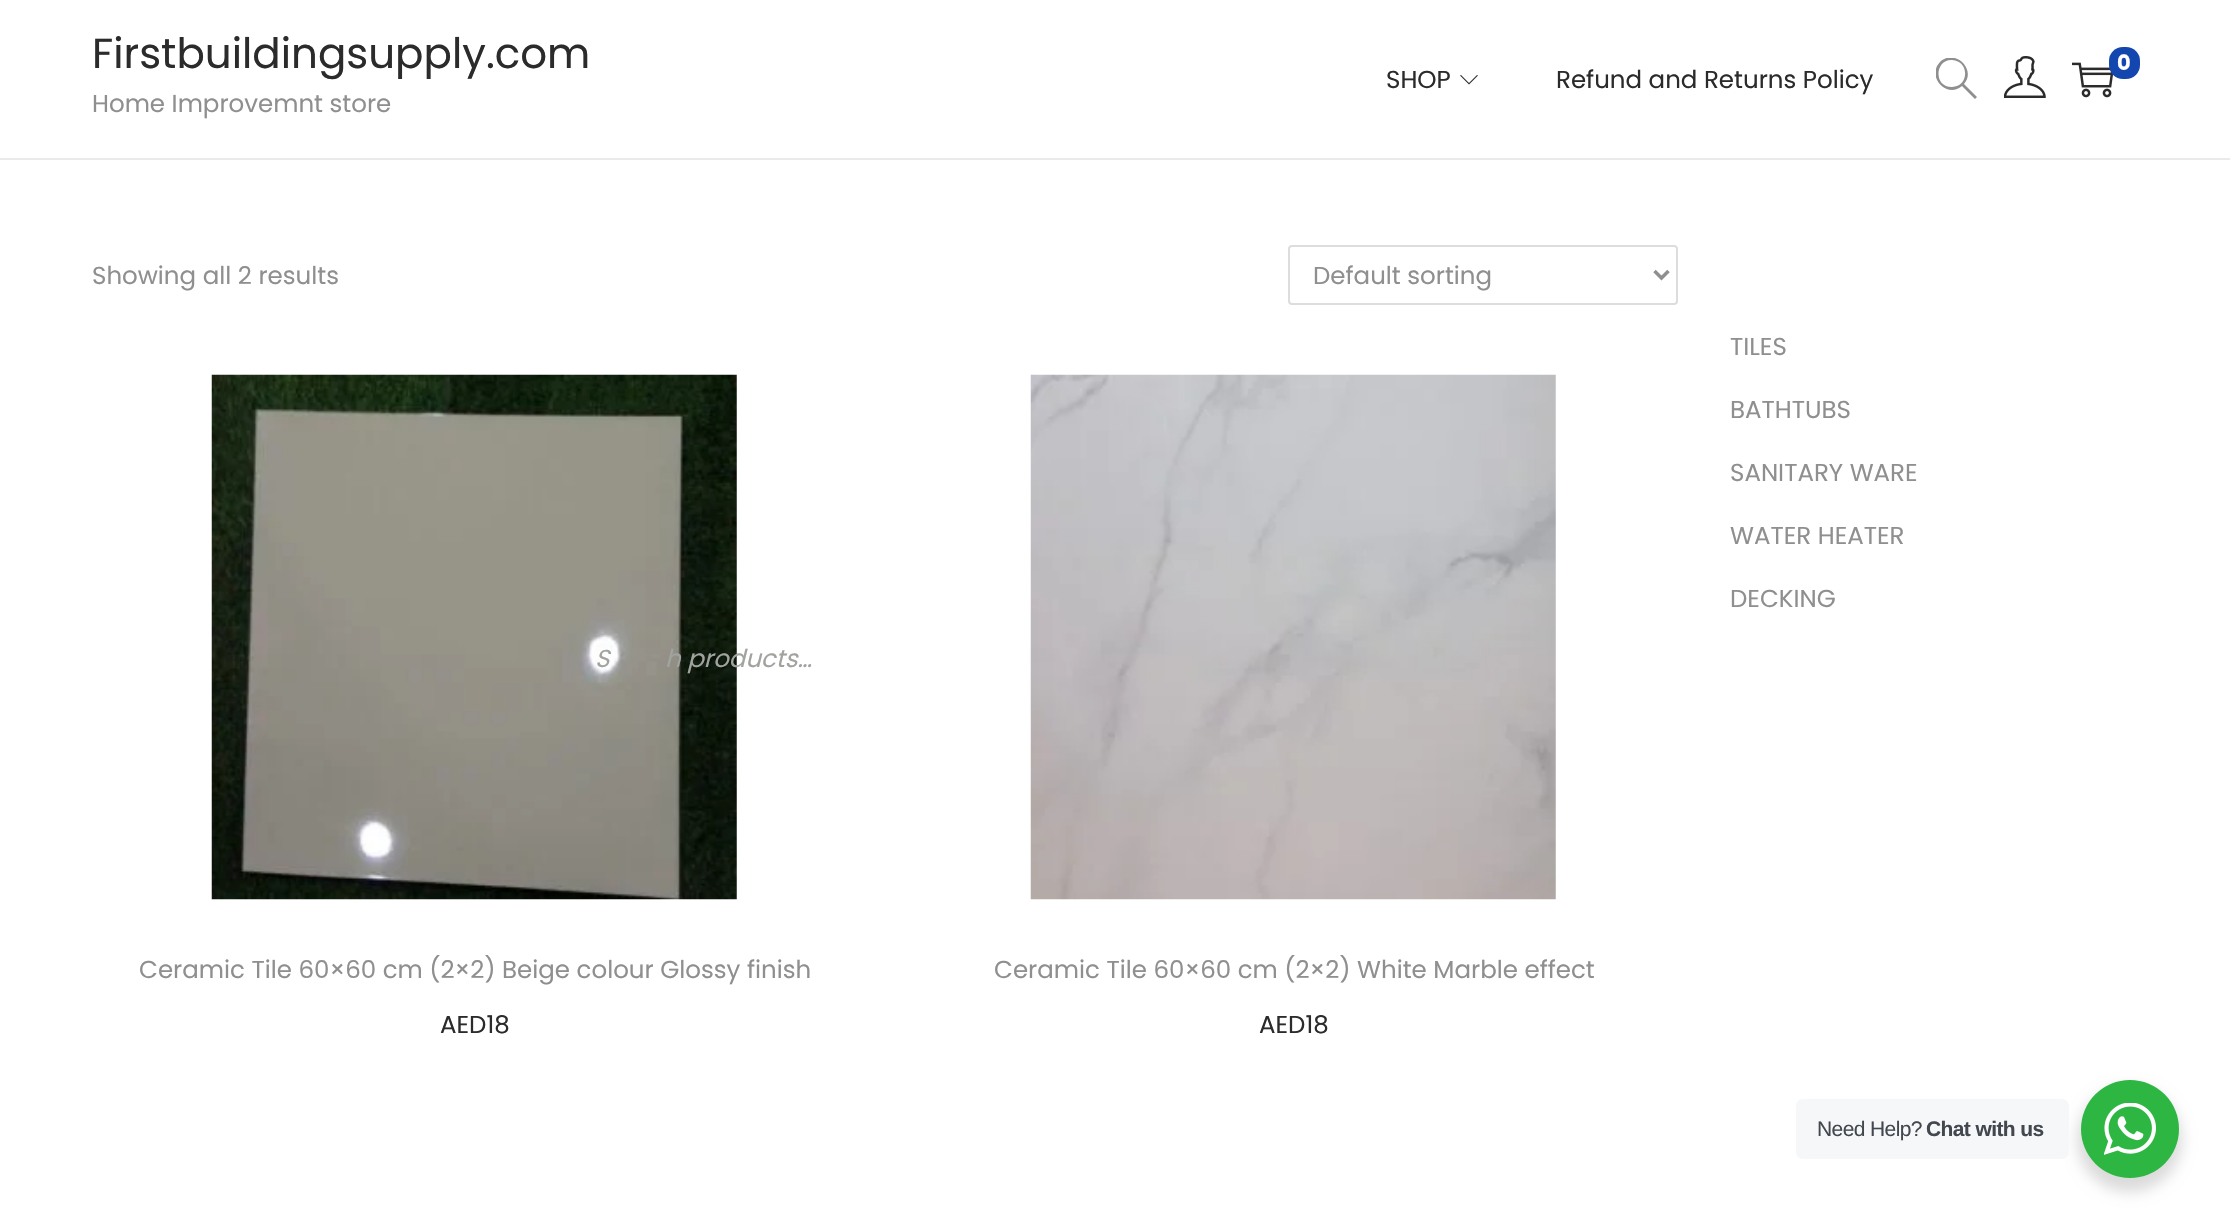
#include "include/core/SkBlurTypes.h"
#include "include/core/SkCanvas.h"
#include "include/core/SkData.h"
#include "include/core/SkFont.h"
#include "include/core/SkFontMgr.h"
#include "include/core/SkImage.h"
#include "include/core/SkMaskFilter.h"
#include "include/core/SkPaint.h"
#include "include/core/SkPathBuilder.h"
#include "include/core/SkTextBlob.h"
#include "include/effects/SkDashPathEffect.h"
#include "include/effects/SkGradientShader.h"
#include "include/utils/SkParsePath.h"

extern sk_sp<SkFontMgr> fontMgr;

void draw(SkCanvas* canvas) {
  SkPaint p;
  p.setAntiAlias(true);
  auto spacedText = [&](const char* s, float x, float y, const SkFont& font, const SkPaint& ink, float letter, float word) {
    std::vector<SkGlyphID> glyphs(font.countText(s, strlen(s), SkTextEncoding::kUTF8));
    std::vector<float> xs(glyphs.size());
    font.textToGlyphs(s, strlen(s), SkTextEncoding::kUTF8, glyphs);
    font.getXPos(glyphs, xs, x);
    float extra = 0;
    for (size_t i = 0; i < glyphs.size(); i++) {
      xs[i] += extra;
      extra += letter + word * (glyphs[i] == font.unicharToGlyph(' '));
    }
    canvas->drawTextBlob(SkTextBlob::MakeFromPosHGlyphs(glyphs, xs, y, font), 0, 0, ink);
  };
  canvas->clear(SK_ColorWHITE);
  p.setColor(SkColorSetRGB(234, 234, 234));
  canvas->drawRect(SkRect::MakeLTRB(0, 158, 2230, 160), p);
  canvas->save();
  canvas->clipRect(SkRect::MakeLTRB(1936, 58, 1978, 100));
  p.setColor(SkColorSetRGB(143, 143, 143));
  canvas->drawPath(SkPathBuilder().moveTo(1977, 97).lineTo(1964, 84).cubicTo(1977, 69, 1954, 48, 1940, 62).cubicTo(1926, 77, 1947, 99, 1962, 86).lineTo(1975, 99).close().moveTo(1952, 87).cubicTo(1933, 87, 1935, 59, 1952, 60).cubicTo(1970, 61, 1969, 87, 1952, 87).close().detach(), p);
  canvas->restore();
  canvas->drawImageRect(SkImages::DeferredFromEncodedData(SkData::MakeFromFileName("images/1.png")), SkRect::MakeLTRB(2004, 56, 2046, 98), SkSamplingOptions());
  canvas->drawImageRect(SkImages::DeferredFromEncodedData(SkData::MakeFromFileName("images/2.png")), SkRect::MakeLTRB(2072, 62, 2114, 98), SkSamplingOptions());
  p.setColor(SkColorSetRGB(19, 70, 175));
  canvas->drawRoundRect(SkRect::MakeLTRB(2109, 47, 2140, 79), 14, 14, p);
  p.setColor(SkColorSetRGB(43, 43, 43));
  canvas->drawPath(SkPathBuilder().moveTo(1478, 75.5f).lineTo(1469, 84.5f).lineTo(1460, 75.5f).lineTo(1461, 75).lineTo(1469, 83).lineTo(1477, 75).close().detach(), p);
  p.setStyle(SkPaint::kStroke_Style);
  p.setStrokeWidth(2);
  p.setColor(SkColorSetRGB(221, 221, 221));
  canvas->drawRoundRect(SkRect::MakeLTRB(1289, 246, 1677, 304), 3, 3, p);
  p.setStrokeWidth(3.5f);
  p.setColor(SkColorSetRGB(143, 143, 143));
  canvas->drawPath(SkPathBuilder().moveTo(1654.5f, 271).lineTo(1661.5f, 278).lineTo(1668.5f, 271).detach(), p);
  canvas->drawImageRect(SkImages::DeferredFromEncodedData(SkData::MakeFromFileName("images/3.png")), SkRect::MakeLTRB(211, 374, 737, 900), SkSamplingOptions());
  canvas->drawImageRect(SkImages::DeferredFromEncodedData(SkData::MakeFromFileName("images/4.png")), SkRect::MakeLTRB(1030, 374, 1556, 900), SkSamplingOptions());
  p.setStyle(SkPaint::kFill_Style);
  p.setColor(SkColorSetARGB(36, 0, 0, 0));
  p.setMaskFilter(SkMaskFilter::MakeBlur(kNormal_SkBlurStyle, 7));
  canvas->drawRoundRect(SkRect::MakeLTRB(2077, 1087, 2182, 1192), 52.5f, 52.5f, p);
  p.setMaskFilter(nullptr);
  p.setColor(SkColorSetRGB(245, 247, 249));
  canvas->drawRoundRect(SkRect::MakeLTRB(1796, 1099, 2069, 1159), 7, 7, p);
  p.setColor(SkColorSetRGB(45, 183, 66));
  canvas->drawCircle(2130, 1129, 49, p);
  canvas->drawImageRect(SkImages::DeferredFromEncodedData(SkData::MakeFromFileName("images/5.png")), SkRect::MakeLTRB(2104, 1103, 2156, 1155), SkSamplingOptions());
  SkFont font1(fontMgr->matchFamilyStyle("Poppins", SkFontStyle::Normal()), 42);
  font1.setSubpixel(true);
  p.setColor(SkColorSetRGB(43, 43, 43));
  canvas->drawString("Firstbuildingsupply.com", 92, 68, font1, p);
  SkFont font2(fontMgr->matchFamilyStyle("Poppins", SkFontStyle::Normal()), 24.5f);
  font2.setSubpixel(true);
  p.setColor(SkColorSetRGB(143, 143, 143));
  canvas->drawString("Home Improvemnt store", 92, 112, font2, p);
  SkFont font3(fontMgr->matchFamilyStyle("Poppins", SkFontStyle::Bold()), 21);
  font3.setSubpixel(true);
  p.setColor(SK_ColorWHITE);
  canvas->drawString("0", 2117, 70, font3, p);
  p.setColor(SkColorSetRGB(43, 43, 43));
  canvas->drawString("SHOP", 1386, 88, font2, p);
  canvas->drawString("Refund and Returns Policy", 1556, 88, font2, p);
  p.setColor(SkColorSetRGB(143, 143, 143));
  canvas->drawString("Showing all 2 results", 92, 284, font2, p);
  canvas->drawString("Default sorting", 1313, 284, font2, p);
  canvas->drawString("Ceramic Tile 60×60 cm (2×2) Beige colour Glossy finish", 139, 978, font2, p);
  p.setColor(SkColorSetRGB(43, 43, 43));
  canvas->drawString("AED18", 440, 1033, font2, p);
  p.setColor(SkColorSetRGB(143, 143, 143));
  canvas->drawString("Ceramic Tile 60×60 cm (2×2) White Marble effect", 994, 978, font2, p);
  p.setColor(SkColorSetRGB(43, 43, 43));
  canvas->drawString("AED18", 1259, 1033, font2, p);
  p.setColor(SkColorSetRGB(143, 143, 143));
  canvas->drawString("TILES", 1730, 355, font2, p);
  canvas->drawString("BATHTUBS", 1730, 418, font2, p);
  canvas->drawString("SANITARY WARE", 1730, 481, font2, p);
  canvas->drawString("WATER HEATER", 1730, 544, font2, p);
  canvas->drawString("DECKING", 1730, 607, font2, p);
  SkFont font4(fontMgr->matchFamilyStyle("Poppins", SkFontStyle::Italic()), 24.5f);
  font4.setSubpixel(true);
  p.setColor(SkColorSetRGB(161, 164, 158));
  canvas->drawString("S", 595, 667, font4, p);
  canvas->drawString("h products…", 665, 667, font4, p);
  SkFont font5(fontMgr->matchFamilyStyle("Liberation Sans", SkFontStyle::Normal()), 21);
  font5.setSubpixel(true);
  p.setColor(SkColorSetRGB(67, 71, 78));
  spacedText("Need Help?", 1817, 1136, font5, p, -0.6f, 0);
  SkFont font6(fontMgr->matchFamilyStyle("Liberation Sans", SkFontStyle::Bold()), 21);
  font6.setSubpixel(true);
  spacedText("Chat with us", 1926, 1136, font6, p, -0.6f, 0);
}
